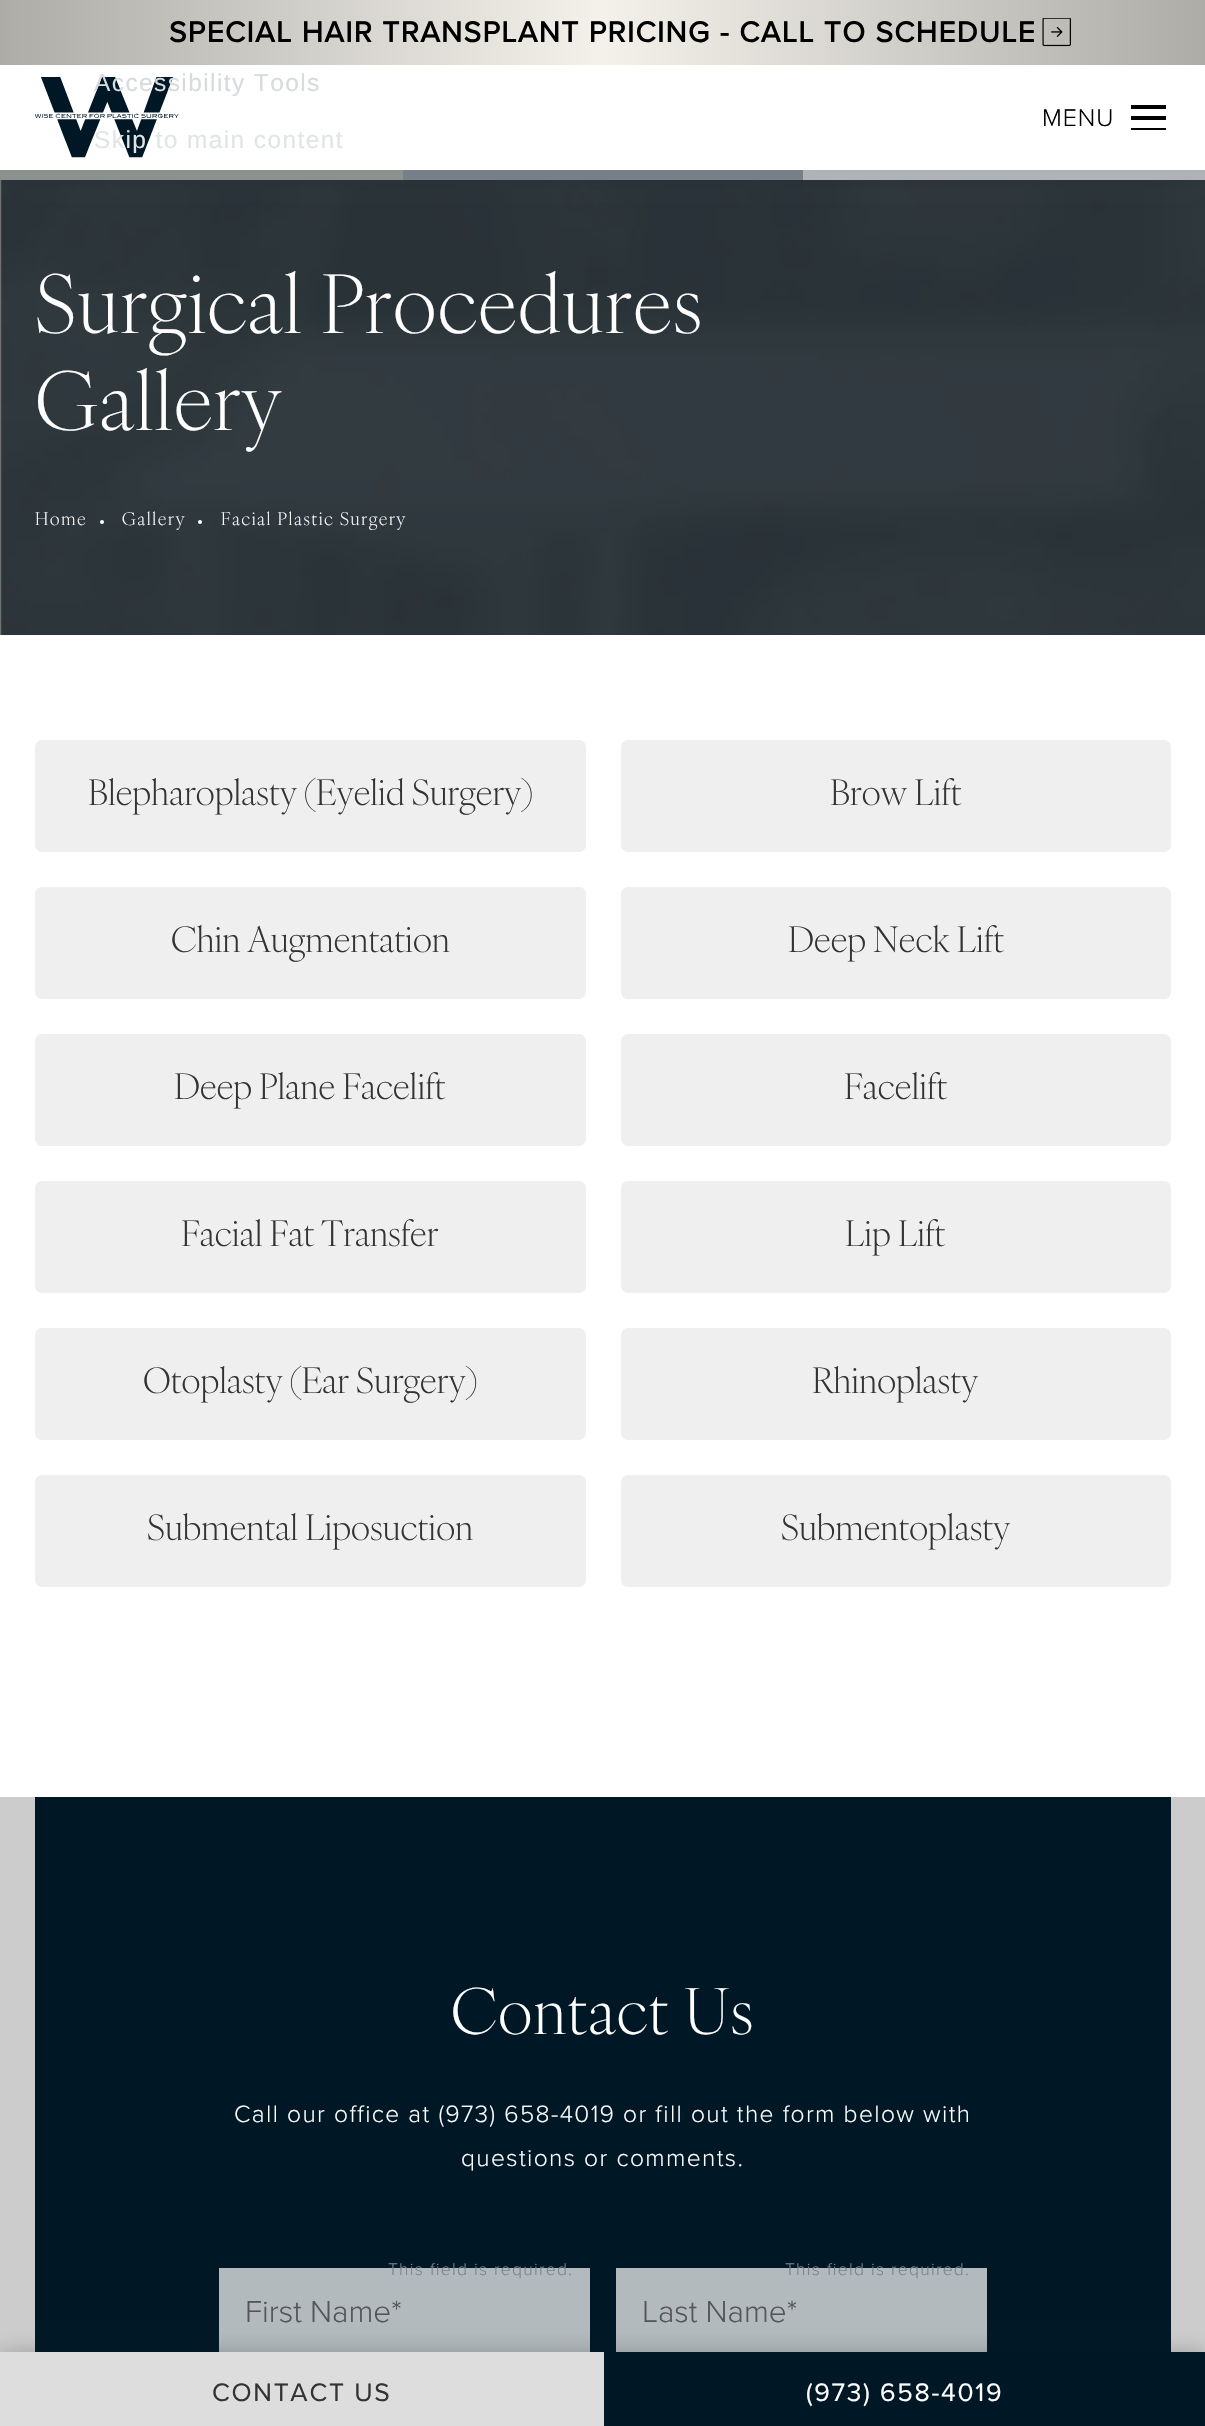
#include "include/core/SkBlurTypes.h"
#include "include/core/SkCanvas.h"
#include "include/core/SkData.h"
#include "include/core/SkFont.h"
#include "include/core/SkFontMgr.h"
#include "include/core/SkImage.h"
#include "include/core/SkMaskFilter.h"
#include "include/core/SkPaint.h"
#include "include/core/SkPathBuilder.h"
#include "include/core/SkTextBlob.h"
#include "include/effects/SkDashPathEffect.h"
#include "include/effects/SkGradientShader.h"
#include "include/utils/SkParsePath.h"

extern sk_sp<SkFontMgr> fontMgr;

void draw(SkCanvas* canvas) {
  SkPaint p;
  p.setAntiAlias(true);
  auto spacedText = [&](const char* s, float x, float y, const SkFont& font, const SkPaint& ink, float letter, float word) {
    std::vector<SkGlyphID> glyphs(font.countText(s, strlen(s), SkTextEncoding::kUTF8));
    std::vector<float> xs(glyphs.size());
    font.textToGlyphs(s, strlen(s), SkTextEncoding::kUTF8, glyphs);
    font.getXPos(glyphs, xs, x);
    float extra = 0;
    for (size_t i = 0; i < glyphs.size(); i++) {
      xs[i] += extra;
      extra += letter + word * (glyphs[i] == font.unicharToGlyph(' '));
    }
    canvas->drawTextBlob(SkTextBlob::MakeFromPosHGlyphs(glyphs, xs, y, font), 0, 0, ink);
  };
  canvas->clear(SK_ColorWHITE);
  p.setColor(SkColorSetRGB(137, 137, 137));
  canvas->drawRect(SkRect::MakeLTRB(0, 180, 2, 635), p);
  canvas->drawImageRect(SkImages::DeferredFromEncodedData(SkData::MakeFromFileName("images/3.png")), SkRect::MakeLTRB(0, 180, 1205, 635), SkSamplingOptions());
  canvas->save();
  canvas->clipPath(SkPathBuilder(SkPathFillType::kEvenOdd).moveTo(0, 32).lineTo(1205, 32).lineTo(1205, 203).lineTo(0, 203).close().moveTo(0, 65).lineTo(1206, 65).lineTo(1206, 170).lineTo(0, 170).close().detach(), true);
  p.setColor(SkColorSetARGB(102, 20, 20, 20));
  p.setMaskFilter(SkMaskFilter::MakeBlur(kNormal_SkBlurStyle, 13));
  canvas->drawRect(SkRect::MakeLTRB(7, 72, 1199, 163), p);
  p.setMaskFilter(nullptr);
  canvas->restore();
  {
    const SkColor colors[] = {SkColorSetRGB(173, 172, 167), SkColorSetRGB(244, 241, 234), SkColorSetRGB(173, 172, 167)};
    const float stops[] = {0, 0.5f, 1};
    const SkPoint ends[] = {{0, 32}, {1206, 32}};
    p.setShader(SkGradientShader::MakeLinear(ends, colors, stops, 3, SkTileMode::kClamp));
    p.setAlpha(255);
  }
  canvas->drawRect(SkRect::MakeLTRB(0, 0, 1205, 65), p);
  canvas->drawImageRect(SkImages::DeferredFromEncodedData(SkData::MakeFromFileName("images/1.png")), SkRect::MakeLTRB(1042, 18, 1071, 47), SkSamplingOptions());
  canvas->drawImageRect(SkImages::DeferredFromEncodedData(SkData::MakeFromFileName("images/2.png")), SkRect::MakeLTRB(35, 77, 179, 158), SkSamplingOptions());
  p.setShader(nullptr);
  p.setColor(SK_ColorBLACK);
  canvas->drawRect(SkRect::MakeLTRB(1131, 105, 1166, 109), p);
  canvas->drawRect(SkRect::MakeLTRB(1131, 116, 1166, 120), p);
  canvas->drawRect(SkRect::MakeLTRB(1131, 128, 1166, 130), p);
  p.setColor(SkColorSetRGB(175, 178, 182));
  canvas->drawRect(SkRect::MakeLTRB(803, 170, 1205, 180), p);
  p.setColor(SkColorSetRGB(141, 145, 141));
  canvas->drawRect(SkRect::MakeLTRB(0, 170, 403, 180), p);
  p.setColor(SkColorSetRGB(119, 127, 136));
  canvas->drawRect(SkRect::MakeLTRB(403, 170, 803, 180), p);
  p.setColor(SK_ColorWHITE);
  canvas->drawCircle(102, 522, 2, p);
  canvas->drawCircle(200, 522, 2, p);
  p.setColor(SkColorSetRGB(239, 239, 239));
  canvas->drawRoundRect(SkRect::MakeLTRB(35, 740, 586, 852), 7, 7, p);
  canvas->drawRoundRect(SkRect::MakeLTRB(621, 740, 1171, 852), 7, 7, p);
  canvas->drawRoundRect(SkRect::MakeLTRB(35, 887, 586, 999), 7, 7, p);
  canvas->drawRoundRect(SkRect::MakeLTRB(621, 887, 1171, 999), 7, 7, p);
  canvas->drawRoundRect(SkRect::MakeLTRB(35, 1034, 586, 1146), 7, 7, p);
  canvas->drawRoundRect(SkRect::MakeLTRB(621, 1034, 1171, 1146), 7, 7, p);
  canvas->drawRoundRect(SkRect::MakeLTRB(35, 1181, 586, 1293), 7, 7, p);
  canvas->drawRoundRect(SkRect::MakeLTRB(621, 1181, 1171, 1293), 7, 7, p);
  canvas->drawRoundRect(SkRect::MakeLTRB(35, 1328, 586, 1440), 7, 7, p);
  canvas->drawRoundRect(SkRect::MakeLTRB(621, 1328, 1171, 1440), 7, 7, p);
  canvas->drawRoundRect(SkRect::MakeLTRB(35, 1475, 586, 1587), 7, 7, p);
  canvas->drawRoundRect(SkRect::MakeLTRB(621, 1475, 1171, 1587), 7, 7, p);
  p.setColor(SkColorSetRGB(204, 204, 204));
  canvas->drawRect(SkRect::MakeLTRB(0, 1797, 1205, 2352), p);
  p.setColor(SkColorSetRGB(0, 24, 38));
  canvas->drawRect(SkRect::MakeLTRB(35, 1797, 1171, 2352), p);
  p.setColor(SkColorSetRGB(179, 186, 190));
  canvas->drawRect(SkRect::MakeLTRB(219, 2268, 590, 2352), p);
  canvas->drawRect(SkRect::MakeLTRB(616, 2268, 987, 2352), p);
  p.setColor(SkColorSetARGB(64, 20, 20, 20));
  p.setMaskFilter(SkMaskFilter::MakeBlur(kNormal_SkBlurStyle, 10.5f));
  canvas->drawRect(SkRect::MakeLTRB(0, 2352, 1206, 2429), p);
  p.setMaskFilter(nullptr);
  p.setColor(SkColorSetRGB(221, 221, 221));
  canvas->drawRect(SkRect::MakeLTRB(0, 2352, 604, 2426), p);
  p.setColor(SkColorSetRGB(0, 24, 38));
  canvas->drawRect(SkRect::MakeLTRB(604, 2352, 1205, 2426), p);
  SkFont font1(fontMgr->matchFamilyStyle("Proxima Nova", SkFontStyle::Bold()), 29.75f);
  font1.setSubpixel(true);
  p.setColor(SK_ColorBLACK);
  spacedText("SPECIAL HAIR TRANSPLANT PRICING - CALL TO SCHEDULE", 169, 42, font1, p, 1.4f, 0);
  SkFont font2(fontMgr->matchFamilyStyle("Proxima Nova", SkFontStyle(300, SkFontStyle::kNormal_Width, SkFontStyle::kUpright_Slant)), 25);
  font2.setSubpixel(true);
  spacedText("MENU", 1042, 126, font2, p, 1, 0);
  SkFont font3(fontMgr->matchFamilyStyle("Liberation Sans", SkFontStyle::Normal()), 24.5f);
  font3.setSubpixel(true);
  p.setColor(SkColorSetRGB(215, 219, 221));
  spacedText("Accessibility Tools", 94, 91, font3, p, 1.4f, 0);
  p.setColor(SkColorSetRGB(226, 229, 230));
  spacedText("Skip to main content", 94, 148, font3, p, 1.4f, 0);
  SkFont font4(fontMgr->matchFamilyStyle("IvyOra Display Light", SkFontStyle(300, SkFontStyle::kNormal_Width, SkFontStyle::kUpright_Slant)), 80.5f);
  font4.setSubpixel(true);
  p.setColor(SK_ColorWHITE);
  spacedText("Surgical Procedures", 35, 333, font4, p, 1.4f, 0);
  spacedText("Gallery", 35, 430, font4, p, 1.4f, 0);
  SkFont font5(fontMgr->matchFamilyStyle("IvyOra Display Light", SkFontStyle(300, SkFontStyle::kNormal_Width, SkFontStyle::kUpright_Slant)), 17.5f);
  font5.setSubpixel(true);
  spacedText("Home", 35, 525, font5, p, 1.75f, 0);
  spacedText("Gallery", 122, 525, font5, p, 1.75f, 0);
  spacedText("Facial Plastic Surgery", 221, 525, font5, p, 1.75f, 0);
  SkFont font6(fontMgr->matchFamilyStyle("IvyOra Display Light", SkFontStyle(300, SkFontStyle::kNormal_Width, SkFontStyle::kUpright_Slant)), 35);
  font6.setSubpixel(true);
  p.setColor(SkColorSetRGB(51, 51, 51));
  canvas->drawString("Blepharoplasty (Eyelid Surgery)", 88, 805, font6, p);
  canvas->drawString("Brow Lift", 830, 805, font6, p);
  canvas->drawString("Chin Augmentation", 171, 952, font6, p);
  canvas->drawString("Deep Neck Lift", 788, 952, font6, p);
  canvas->drawString("Deep Plane Facelift", 174, 1099, font6, p);
  canvas->drawString("Facelift", 844, 1099, font6, p);
  canvas->drawString("Facial Fat Transfer", 181, 1246, font6, p);
  canvas->drawString("Lip Lift", 845, 1246, font6, p);
  canvas->drawString("Otoplasty (Ear Surgery)", 143, 1393, font6, p);
  canvas->drawString("Rhinoplasty", 812, 1393, font6, p);
  canvas->drawString("Submental Liposuction", 147, 1540, font6, p);
  canvas->drawString("Submentoplasty", 781, 1540, font6, p);
  SkFont font7(fontMgr->matchFamilyStyle("IvyOra Display Light", SkFontStyle(300, SkFontStyle::kNormal_Width, SkFontStyle::kUpright_Slant)), 63);
  font7.setSubpixel(true);
  p.setColor(SK_ColorWHITE);
  spacedText("Contact Us", 451, 2034, font7, p, 1.4f, 0);
  SkFont font8(fontMgr->matchFamilyStyle("Proxima Nova", SkFontStyle(300, SkFontStyle::kNormal_Width, SkFontStyle::kUpright_Slant)), 24.5f);
  font8.setSubpixel(true);
  spacedText("Call our office at (973) 658-4019 or fill out the form below with", 234, 2122, font8, p, 1.4f, 0);
  spacedText("questions or comments.", 461, 2166, font8, p, 1.4f, 0);
  SkFont font9(fontMgr->matchFamilyStyle("Proxima Nova", SkFontStyle(300, SkFontStyle::kNormal_Width, SkFontStyle::kUpright_Slant)), 17.5f);
  font9.setSubpixel(true);
  p.setColor(SkColorSetRGB(119, 132, 139));
  spacedText("This field is required.", 388, 2275, font9, p, 1.25f, 0);
  SkFont font10(fontMgr->matchFamilyStyle("Proxima Nova", SkFontStyle(300, SkFontStyle::kNormal_Width, SkFontStyle::kUpright_Slant)), 31.5f);
  font10.setSubpixel(true);
  p.setColor(SkColorSetRGB(85, 85, 85));
  canvas->drawString("First Name*", 245, 2322, font10, p);
  p.setColor(SkColorSetRGB(119, 132, 139));
  spacedText("This field is required.", 785, 2275, font9, p, 1.25f, 0);
  p.setColor(SkColorSetRGB(85, 85, 85));
  canvas->drawString("Last Name*", 642, 2322, font10, p);
  SkFont font11(fontMgr->matchFamilyStyle("Proxima Nova", SkFontStyle::Normal()), 26.25f);
  font11.setSubpixel(true);
  p.setColor(SkColorSetRGB(51, 51, 51));
  spacedText("CONTACT US", 212, 2401, font11, p, 1.75f, 0);
  p.setColor(SK_ColorWHITE);
  spacedText("(973) 658-4019", 806, 2401, font11, p, 1.75f, 0);
}
